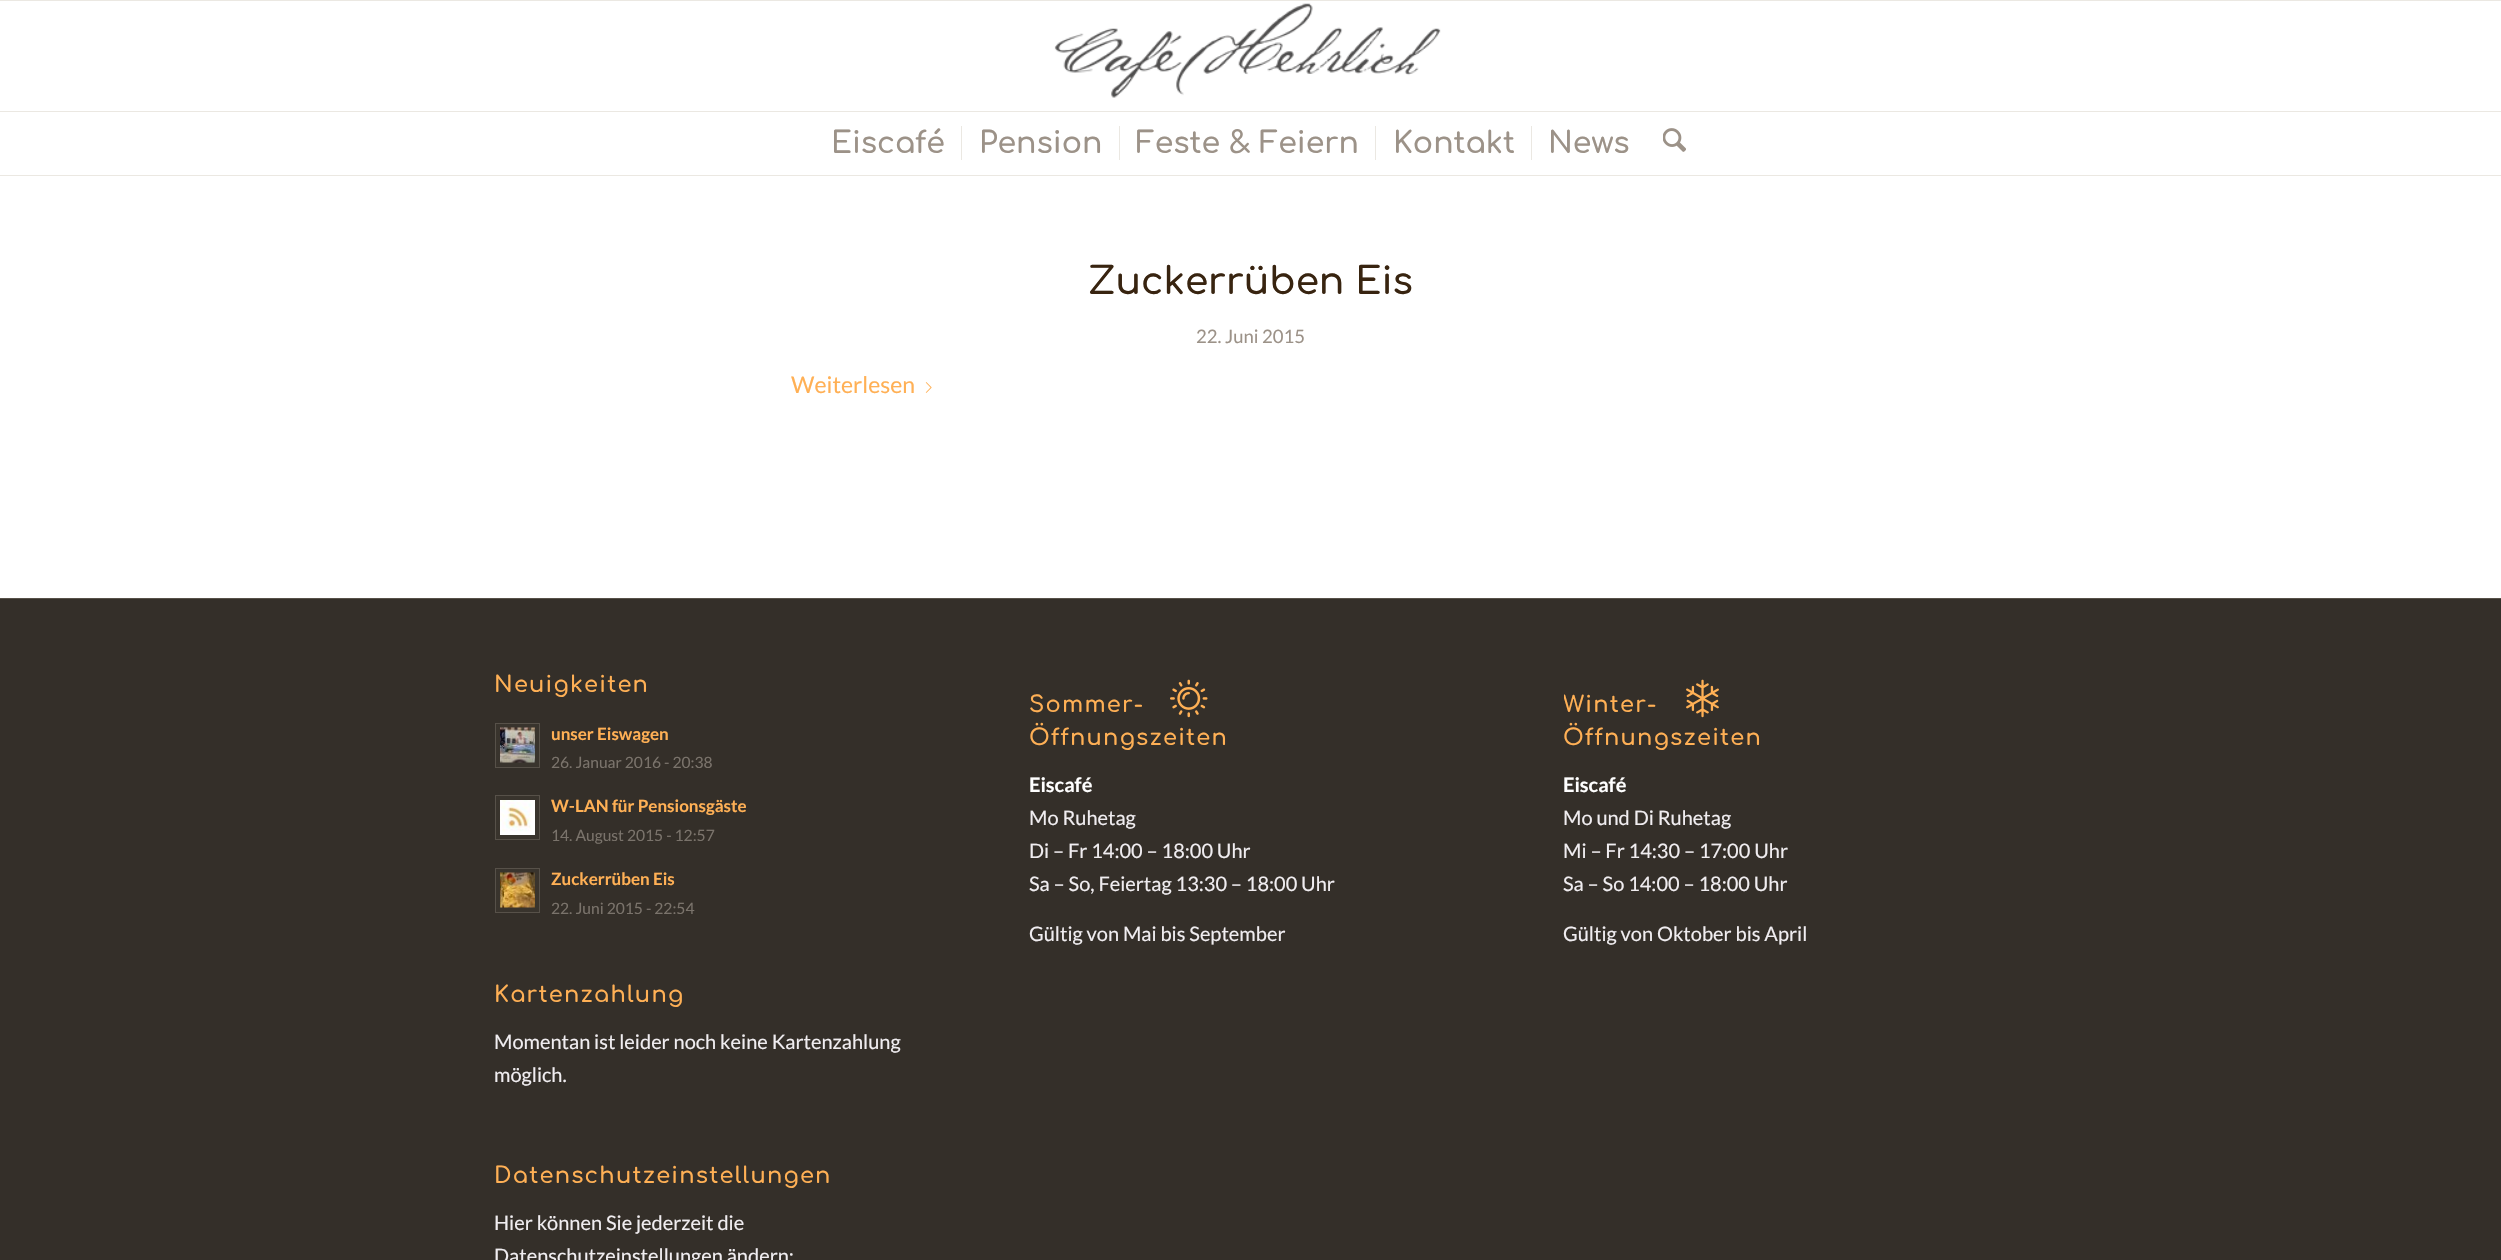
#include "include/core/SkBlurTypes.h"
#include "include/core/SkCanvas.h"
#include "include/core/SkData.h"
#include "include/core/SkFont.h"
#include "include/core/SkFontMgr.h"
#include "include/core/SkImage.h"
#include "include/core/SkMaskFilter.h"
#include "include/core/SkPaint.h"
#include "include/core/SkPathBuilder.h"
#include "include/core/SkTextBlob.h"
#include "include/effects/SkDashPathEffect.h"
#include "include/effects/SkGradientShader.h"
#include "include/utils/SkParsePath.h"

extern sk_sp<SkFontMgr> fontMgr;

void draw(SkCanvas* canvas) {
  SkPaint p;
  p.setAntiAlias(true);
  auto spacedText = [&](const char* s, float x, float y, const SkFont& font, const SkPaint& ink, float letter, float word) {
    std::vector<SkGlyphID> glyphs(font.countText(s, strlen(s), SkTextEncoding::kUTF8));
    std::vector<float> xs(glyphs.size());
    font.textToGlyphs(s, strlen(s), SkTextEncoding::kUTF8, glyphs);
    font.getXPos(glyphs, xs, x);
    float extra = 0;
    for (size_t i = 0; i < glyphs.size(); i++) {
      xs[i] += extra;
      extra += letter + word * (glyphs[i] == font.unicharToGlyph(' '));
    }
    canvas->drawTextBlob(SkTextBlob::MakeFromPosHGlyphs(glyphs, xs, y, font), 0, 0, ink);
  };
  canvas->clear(SK_ColorWHITE);
  p.setColor(SkColorSetRGB(235, 232, 226));
  canvas->drawRect(SkRect::MakeLTRB(0, 0, 2501, 1), p);
  canvas->drawRect(SkRect::MakeLTRB(0, 175, 2501, 176), p);
  canvas->drawImageRect(SkImages::DeferredFromEncodedData(SkData::MakeFromFileName("images/1.png")), SkRect::MakeLTRB(1054, 3, 1441, 98), SkSamplingOptions());
  canvas->drawRect(SkRect::MakeLTRB(0, 111, 2501, 112), p);
  canvas->drawRect(SkRect::MakeLTRB(961, 126, 962, 160), p);
  canvas->drawRect(SkRect::MakeLTRB(1119, 126, 1120, 160), p);
  canvas->drawRect(SkRect::MakeLTRB(1375, 126, 1376, 160), p);
  canvas->drawRect(SkRect::MakeLTRB(1531, 126, 1532, 160), p);
  canvas->drawImageRect(SkImages::DeferredFromEncodedData(SkData::MakeFromFileName("images/2.png")), SkRect::MakeLTRB(1663, 128, 1686, 152), SkSamplingOptions());
  canvas->drawImageRect(SkImages::DeferredFromEncodedData(SkData::MakeFromFileName("images/3.png")), SkRect::MakeLTRB(925, 382, 932, 393), SkSamplingOptions());
  p.setColor(SkColorSetRGB(52, 47, 41));
  canvas->drawRect(SkRect::MakeLTRB(0, 599, 2501, 1260), p);
  p.setColor(SkColorSetRGB(87, 81, 73));
  canvas->drawRect(SkRect::MakeLTRB(0, 598, 2501, 599), p);
  p.setColor(SkColorSetRGB(57, 52, 45));
  canvas->drawRect(SkRect::MakeLTRB(495.5f, 723.5f, 539.5f, 767.5f), p);
  p.setStyle(SkPaint::kStroke_Style);
  p.setStrokeWidth(1);
  p.setColor(SkColorSetRGB(87, 81, 73));
  canvas->drawRect(SkRect::MakeLTRB(495.5f, 723.5f, 539.5f, 767.5f), p);
  canvas->drawImageRect(SkImages::DeferredFromEncodedData(SkData::MakeFromFileName("images/4.png")), SkRect::MakeLTRB(500, 727, 535, 763), SkSamplingOptions());
  p.setStyle(SkPaint::kFill_Style);
  p.setColor(SkColorSetRGB(57, 52, 45));
  canvas->drawRect(SkRect::MakeLTRB(495.5f, 795.5f, 539.5f, 839.5f), p);
  p.setStyle(SkPaint::kStroke_Style);
  p.setColor(SkColorSetRGB(87, 81, 73));
  canvas->drawRect(SkRect::MakeLTRB(495.5f, 795.5f, 539.5f, 839.5f), p);
  canvas->drawImageRect(SkImages::DeferredFromEncodedData(SkData::MakeFromFileName("images/5.png")), SkRect::MakeLTRB(500, 800, 535, 835), SkSamplingOptions());
  p.setStyle(SkPaint::kFill_Style);
  p.setColor(SkColorSetRGB(57, 52, 45));
  canvas->drawRect(SkRect::MakeLTRB(495.5f, 868.5f, 539.5f, 912.5f), p);
  p.setStyle(SkPaint::kStroke_Style);
  p.setColor(SkColorSetRGB(87, 81, 73));
  canvas->drawRect(SkRect::MakeLTRB(495.5f, 868.5f, 539.5f, 912.5f), p);
  canvas->drawImageRect(SkImages::DeferredFromEncodedData(SkData::MakeFromFileName("images/6.png")), SkRect::MakeLTRB(500, 872, 535, 908), SkSamplingOptions());
  canvas->drawImageRect(SkImages::DeferredFromEncodedData(SkData::MakeFromFileName("images/7.png")), SkRect::MakeLTRB(1170, 679, 1208, 718), SkSamplingOptions());
  canvas->drawImageRect(SkImages::DeferredFromEncodedData(SkData::MakeFromFileName("images/8.png")), SkRect::MakeLTRB(1686, 679, 1719, 718), SkSamplingOptions());
  SkFont font1(fontMgr->matchFamilyStyle("Comfortaa", SkFontStyle(600, SkFontStyle::kNormal_Width, SkFontStyle::kUpright_Slant)), 30);
  font1.setSubpixel(true);
  p.setStyle(SkPaint::kFill_Style);
  p.setColor(SkColorSetRGB(156, 146, 136));
  canvas->drawString("Eiscafé", 831, 153, font1, p);
  canvas->drawString("Pension", 979, 153, font1, p);
  canvas->drawString("Feste & Feiern", 1136, 153, font1, p);
  canvas->drawString("Kontakt", 1393, 153, font1, p);
  canvas->drawString("News", 1548, 153, font1, p);
  SkFont font2(fontMgr->matchFamilyStyle("Comfortaa", SkFontStyle(600, SkFontStyle::kNormal_Width, SkFontStyle::kUpright_Slant)), 37.5f);
  font2.setSubpixel(true);
  p.setColor(SkColorSetRGB(56, 36, 16));
  canvas->drawString("Zuckerrüben Eis", 1088, 294, font2, p);
  SkFont font3(fontMgr->matchFamilyStyle("Lato", SkFontStyle::Normal()), 18.5f);
  font3.setSubpixel(true);
  p.setColor(SkColorSetRGB(156, 146, 136));
  canvas->drawString("22. Juni 2015", 1196, 343, font3, p);
  SkFont font4(fontMgr->matchFamilyStyle("Lato", SkFontStyle::Normal()), 23);
  font4.setSubpixel(true);
  p.setColor(SkColorSetRGB(255, 176, 85));
  canvas->drawString("Weiterlesen", 791, 393, font4, p);
  SkFont font5(fontMgr->matchFamilyStyle("Comfortaa", SkFontStyle(600, SkFontStyle::kNormal_Width, SkFontStyle::kUpright_Slant)), 22.5f);
  font5.setSubpixel(true);
  spacedText("Neuigkeiten", 494, 692, font5, p, 1.25f, 0);
  SkFont font6(fontMgr->matchFamilyStyle("Lato", SkFontStyle::Bold()), 17);
  font6.setSubpixel(true);
  canvas->drawString("unser Eiswagen", 551, 740, font6, p);
  SkFont font7(fontMgr->matchFamilyStyle("Lato", SkFontStyle::Normal()), 15.6f);
  font7.setSubpixel(true);
  p.setColor(SkColorSetRGB(122, 115, 107));
  canvas->drawString("26. Januar 2016 - 20:38", 551, 768, font7, p);
  p.setColor(SkColorSetRGB(255, 176, 85));
  canvas->drawString("W-LAN für Pensionsgäste", 551, 812, font6, p);
  p.setColor(SkColorSetRGB(122, 115, 107));
  canvas->drawString("14. August 2015 - 12:57", 551, 841, font7, p);
  p.setColor(SkColorSetRGB(255, 176, 85));
  canvas->drawString("Zuckerrüben Eis", 551, 885, font6, p);
  p.setColor(SkColorSetRGB(122, 115, 107));
  canvas->drawString("22. Juni 2015 - 22:54", 551, 914, font7, p);
  p.setColor(SkColorSetRGB(255, 176, 85));
  spacedText("Kartenzahlung", 494, 1002, font5, p, 1.25f, 0);
  SkFont font8(fontMgr->matchFamilyStyle("Lato", SkFontStyle::Normal()), 20);
  font8.setSubpixel(true);
  p.setColor(SkColorSetRGB(240, 237, 240));
  canvas->drawString("Momentan ist leider noch keine Kartenzahlung", 494, 1049, font8, p);
  canvas->drawString("möglich.", 494, 1082, font8, p);
  p.setColor(SkColorSetRGB(255, 176, 85));
  spacedText("Datenschutzeinstellungen", 494, 1183, font5, p, 1.25f, 0);
  p.setColor(SkColorSetRGB(240, 237, 240));
  canvas->drawString("Hier können Sie jederzeit die", 494, 1230, font8, p);
  canvas->drawString("Datenschutzeinstellungen ändern:", 494, 1263, font8, p);
  p.setColor(SkColorSetRGB(255, 176, 85));
  spacedText("Sommer-", 1029, 712, font5, p, 1.25f, 0);
  spacedText("Öffnungszeiten", 1029, 745, font5, p, 1.25f, 0);
  SkFont font9(fontMgr->matchFamilyStyle("Lato", SkFontStyle::Bold()), 20);
  font9.setSubpixel(true);
  p.setColor(SK_ColorWHITE);
  canvas->drawString("Eiscafé", 1029, 792, font9, p);
  p.setColor(SkColorSetRGB(240, 237, 240));
  canvas->drawString("Mo Ruhetag", 1029, 825, font8, p);
  canvas->drawString("Di – Fr 14:00 – 18:00 Uhr", 1029, 858, font8, p);
  canvas->drawString("Sa – So, Feiertag 13:30 – 18:00 Uhr", 1029, 891, font8, p);
  canvas->drawString("Gültig von Mai bis September", 1029, 941, font8, p);
  canvas->save();
  canvas->clipRect(SkRect::MakeLTRB(1564, 655, 2006, 966));
  p.setColor(SkColorSetRGB(255, 176, 85));
  spacedText("Winter-", 1563, 712, font5, p, 1.25f, 0);
  canvas->restore();
  spacedText("Öffnungszeiten", 1563, 745, font5, p, 1.25f, 0);
  p.setColor(SK_ColorWHITE);
  canvas->drawString("Eiscafé", 1563, 792, font9, p);
  p.setColor(SkColorSetRGB(240, 237, 240));
  canvas->drawString("Mo und Di Ruhetag", 1563, 825, font8, p);
  canvas->drawString("Mi – Fr 14:30 – 17:00 Uhr", 1563, 858, font8, p);
  canvas->drawString("Sa – So 14:00 – 18:00 Uhr", 1563, 891, font8, p);
  canvas->drawString("Gültig von Oktober bis April", 1563, 941, font8, p);
}
